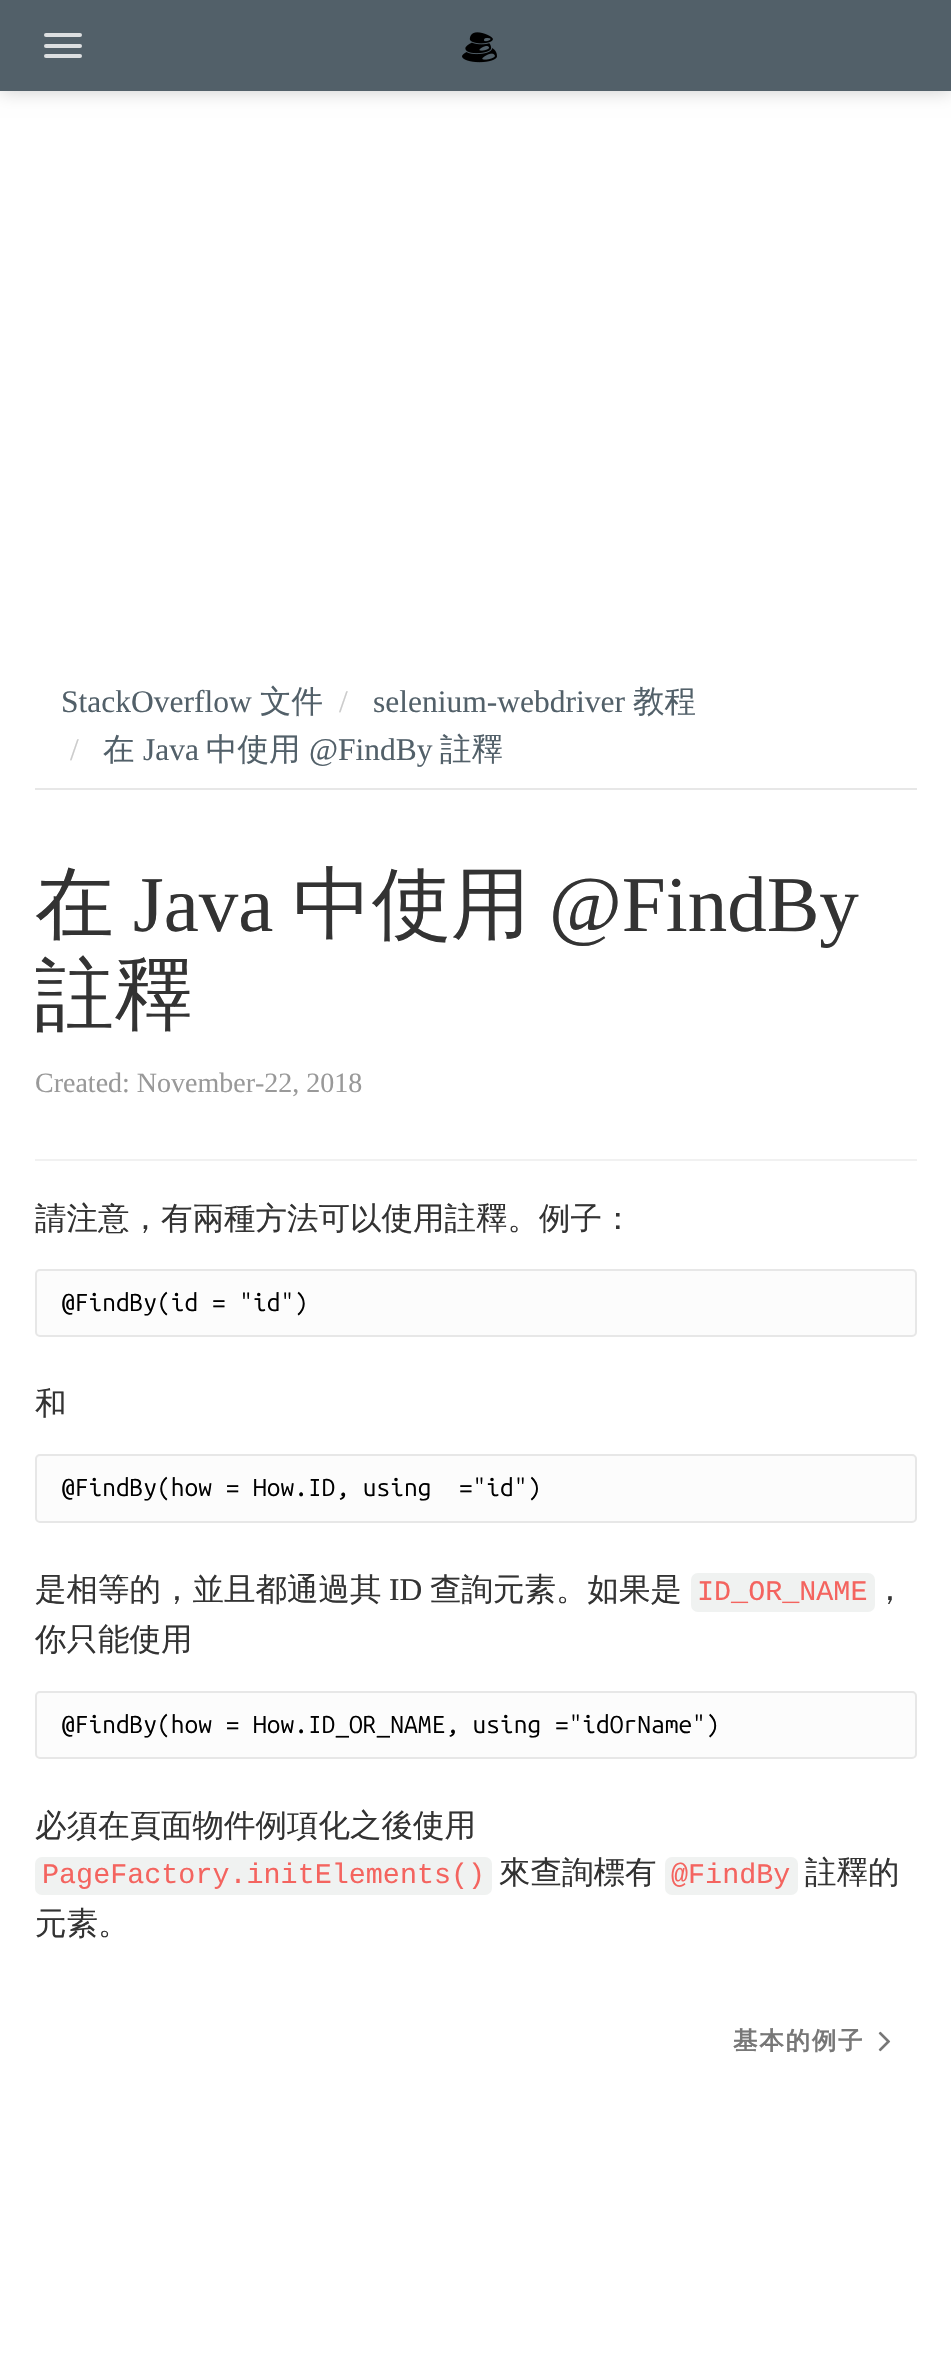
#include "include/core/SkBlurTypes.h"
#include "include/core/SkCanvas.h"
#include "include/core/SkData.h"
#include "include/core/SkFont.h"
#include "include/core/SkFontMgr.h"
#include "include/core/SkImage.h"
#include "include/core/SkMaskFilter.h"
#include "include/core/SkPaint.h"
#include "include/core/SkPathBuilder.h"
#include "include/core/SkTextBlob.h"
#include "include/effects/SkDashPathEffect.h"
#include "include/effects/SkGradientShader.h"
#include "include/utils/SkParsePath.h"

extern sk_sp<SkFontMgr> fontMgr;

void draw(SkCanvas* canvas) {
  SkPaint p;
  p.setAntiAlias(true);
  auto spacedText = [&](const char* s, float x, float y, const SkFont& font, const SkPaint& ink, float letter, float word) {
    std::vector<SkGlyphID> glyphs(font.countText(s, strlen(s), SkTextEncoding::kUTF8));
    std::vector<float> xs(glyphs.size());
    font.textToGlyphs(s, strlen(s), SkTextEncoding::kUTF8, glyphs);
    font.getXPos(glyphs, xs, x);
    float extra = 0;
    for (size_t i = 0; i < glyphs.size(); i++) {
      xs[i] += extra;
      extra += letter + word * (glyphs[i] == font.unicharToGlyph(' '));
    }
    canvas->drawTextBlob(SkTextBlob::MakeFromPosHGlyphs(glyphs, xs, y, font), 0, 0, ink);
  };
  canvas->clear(SK_ColorWHITE);
  p.setColor(SkColorSetARGB(51, 0, 0, 0));
  p.setMaskFilter(SkMaskFilter::MakeBlur(kNormal_SkBlurStyle, 9));
  canvas->drawRect(SkRect::MakeLTRB(0, 0, 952, 91), p);
  p.setMaskFilter(nullptr);
  p.setColor(SkColorSetRGB(82, 96, 105));
  canvas->drawRect(SkRect::MakeLTRB(0, 0, 951, 91), p);
  p.setColor(SkColorSetRGB(220, 223, 225));
  canvas->drawRoundRect(SkRect::MakeLTRB(44, 33, 82, 37), 2, 2, p);
  canvas->drawRoundRect(SkRect::MakeLTRB(44, 44, 82, 48), 2, 2, p);
  canvas->drawRoundRect(SkRect::MakeLTRB(44, 54, 82, 58), 2, 2, p);
  canvas->drawImageRect(SkImages::DeferredFromEncodedData(SkData::MakeFromFileName("images/1.png")), SkRect::MakeLTRB(462, 32, 497, 63), SkSamplingOptions());
  p.setColor(SkColorSetRGB(231, 231, 231));
  canvas->drawRect(SkRect::MakeLTRB(35, 788, 917, 790), p);
  p.setColor(SkColorSetRGB(241, 241, 241));
  canvas->drawRect(SkRect::MakeLTRB(35, 1159, 917, 1161), p);
  p.setColor(SkColorSetRGB(252, 252, 252));
  canvas->drawRoundRect(SkRect::MakeLTRB(36, 1270, 916, 1336), 4, 4, p);
  p.setStyle(SkPaint::kStroke_Style);
  p.setStrokeWidth(2);
  p.setColor(SkColorSetRGB(231, 231, 231));
  canvas->drawRoundRect(SkRect::MakeLTRB(36, 1270, 916, 1336), 4, 4, p);
  p.setStyle(SkPaint::kFill_Style);
  p.setColor(SkColorSetRGB(252, 252, 252));
  canvas->drawRoundRect(SkRect::MakeLTRB(36, 1455, 916, 1522), 4, 4, p);
  p.setStyle(SkPaint::kStroke_Style);
  p.setColor(SkColorSetRGB(231, 231, 231));
  canvas->drawRoundRect(SkRect::MakeLTRB(36, 1455, 916, 1522), 4, 4, p);
  p.setStyle(SkPaint::kFill_Style);
  p.setColor(SkColorSetRGB(240, 242, 241));
  canvas->drawRoundRect(SkRect::MakeLTRB(691, 1573, 875, 1612), 7, 7, p);
  p.setColor(SkColorSetRGB(252, 252, 252));
  canvas->drawRoundRect(SkRect::MakeLTRB(36, 1692, 916, 1758), 4, 4, p);
  p.setStyle(SkPaint::kStroke_Style);
  p.setColor(SkColorSetRGB(231, 231, 231));
  canvas->drawRoundRect(SkRect::MakeLTRB(36, 1692, 916, 1758), 4, 4, p);
  p.setStyle(SkPaint::kFill_Style);
  p.setColor(SkColorSetRGB(240, 242, 241));
  canvas->drawRoundRect(SkRect::MakeLTRB(35, 1857, 492, 1895), 7, 7, p);
  canvas->drawRoundRect(SkRect::MakeLTRB(665, 1857, 798, 1895), 7, 7, p);
  canvas->drawImageRect(SkImages::DeferredFromEncodedData(SkData::MakeFromFileName("images/2.png")), SkRect::MakeLTRB(878, 2031, 891, 2052), SkSamplingOptions());
  SkFont font1(fontMgr->matchFamilyStyle("Liberation Serif", SkFontStyle::Normal()), 31.5f);
  font1.setSubpixel(true);
  p.setColor(SkColorSetRGB(82, 96, 105));
  canvas->drawString("StackOverflow", 61, 712, font1, p);
  SkFont font2(fontMgr->matchFamilyStyle("WenQuanYi Zen Hei", SkFontStyle(500, SkFontStyle::kNormal_Width, SkFontStyle::kUpright_Slant)), 31.5f);
  font2.setSubpixel(true);
  canvas->drawString("文件", 260, 712, font2, p);
  p.setColor(SkColorSetRGB(204, 204, 204));
  canvas->drawString("/", 339, 712, font1, p);
  p.setColor(SkColorSetRGB(82, 96, 105));
  canvas->drawString("selenium-webdriver", 373, 712, font1, p);
  canvas->drawString("教程", 633, 712, font2, p);
  p.setColor(SkColorSetRGB(204, 204, 204));
  canvas->drawString("/", 70, 760, font1, p);
  p.setColor(SkColorSetRGB(82, 96, 105));
  canvas->drawString("在", 103, 760, font2, p);
  canvas->drawString("Java", 143, 760, font1, p);
  canvas->drawString("中使用", 206, 760, font2, p);
  canvas->drawString("@FindBy", 309, 760, font1, p);
  canvas->drawString("註釋", 440, 760, font2, p);
  SkFont font3(fontMgr->matchFamilyStyle("WenQuanYi Zen Hei", SkFontStyle(500, SkFontStyle::kNormal_Width, SkFontStyle::kUpright_Slant)), 79);
  font3.setSubpixel(true);
  p.setColor(SkColorSetRGB(51, 51, 51));
  canvas->drawString("在", 35, 931, font3, p);
  SkFont font4(fontMgr->matchFamilyStyle("Liberation Serif", SkFontStyle::Normal()), 79);
  font4.setSubpixel(true);
  canvas->drawString("Java", 133, 931, font4, p);
  canvas->drawString("中使用", 293, 931, font3, p);
  canvas->drawString("@FindBy", 549, 931, font4, p);
  canvas->drawString("註釋", 35, 1022, font3, p);
  SkFont font5(fontMgr->matchFamilyStyle("Liberation Serif", SkFontStyle::Normal()), 28);
  font5.setSubpixel(true);
  p.setColor(SkColorSetRGB(153, 153, 153));
  canvas->drawString("Created: November-22, 2018", 35, 1092, font5, p);
  p.setColor(SkColorSetRGB(51, 51, 51));
  canvas->drawString("請注意，有兩種方法可以使用註釋。例子：", 35, 1229, font2, p);
  SkFont font6(fontMgr->matchFamilyStyle("Ubuntu Mono", SkFontStyle::Normal()), 24.5f);
  font6.setSubpixel(true);
  p.setColor(SK_ColorBLACK);
  canvas->drawString("@FindBy(id = \"id\")", 61, 1311, font6, p);
  p.setColor(SkColorSetRGB(51, 51, 51));
  canvas->drawString("和", 35, 1414, font2, p);
  p.setColor(SK_ColorBLACK);
  canvas->drawString("@FindBy(how = How.ID, using  =\"id\")", 61, 1496, font6, p);
  p.setColor(SkColorSetRGB(51, 51, 51));
  canvas->drawString("是相等的，並且都通過其", 35, 1600, font2, p);
  canvas->drawString("ID", 389, 1600, font1, p);
  canvas->drawString("查詢元素。如果是", 430, 1600, font2, p);
  SkFont font7(fontMgr->matchFamilyStyle("Liberation Mono", SkFontStyle::Normal()), 28.4f);
  font7.setSubpixel(true);
  p.setColor(SkColorSetRGB(244, 100, 95));
  canvas->drawString("ID_OR_NAME", 697, 1600, font7, p);
  p.setColor(SkColorSetRGB(51, 51, 51));
  canvas->drawString("，", 874, 1600, font2, p);
  canvas->drawString("你只能使用", 35, 1650, font2, p);
  p.setColor(SK_ColorBLACK);
  canvas->drawString("@FindBy(how = How.ID_OR_NAME, using =\"idOrName\")", 61, 1733, font6, p);
  p.setColor(SkColorSetRGB(51, 51, 51));
  canvas->drawString("必須在頁面物件例項化之後使用", 35, 1836, font2, p);
  p.setColor(SkColorSetRGB(244, 100, 95));
  canvas->drawString("PageFactory.initElements()", 42, 1883, font7, p);
  p.setColor(SkColorSetRGB(51, 51, 51));
  canvas->drawString("來查詢標有", 499, 1883, font2, p);
  p.setColor(SkColorSetRGB(244, 100, 95));
  canvas->drawString("@FindBy", 671, 1883, font7, p);
  p.setColor(SkColorSetRGB(51, 51, 51));
  canvas->drawString("註釋的", 805, 1883, font2, p);
  canvas->drawString("元素。", 35, 1934, font2, p);
  SkFont font8(fontMgr->matchFamilyStyle("WenQuanYi Zen Hei", SkFontStyle::Bold()), 24.5f);
  font8.setSubpixel(true);
  p.setColor(SkColorSetRGB(119, 119, 119));
  spacedText("基本的例子", 733, 2049, font8, p, 1.75f, 0);
}
